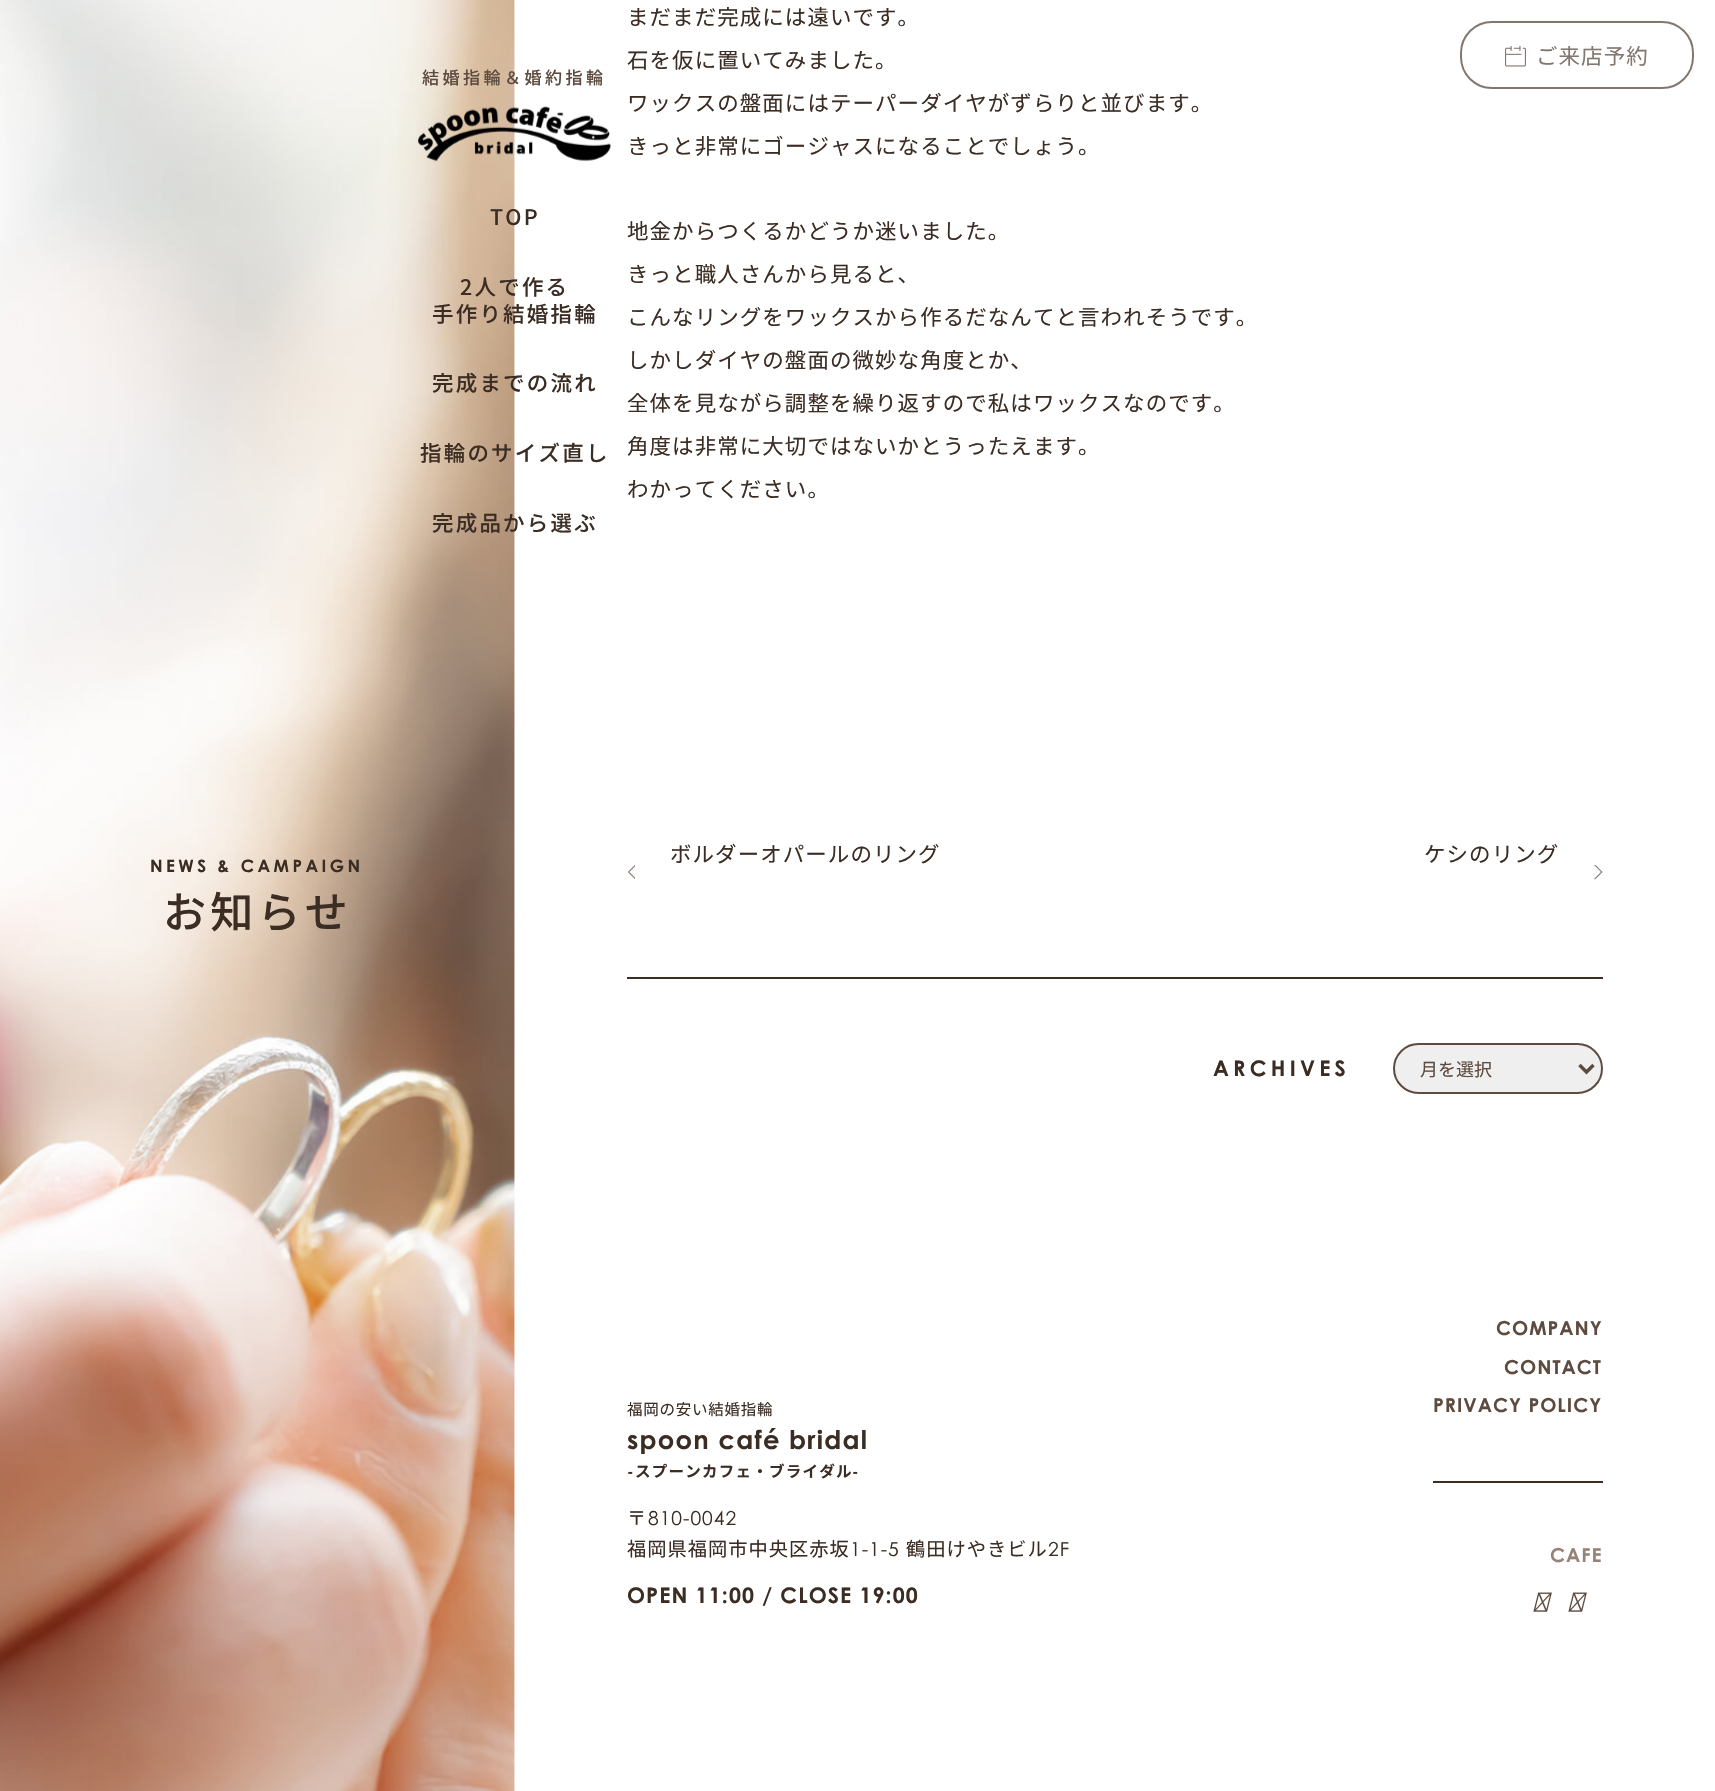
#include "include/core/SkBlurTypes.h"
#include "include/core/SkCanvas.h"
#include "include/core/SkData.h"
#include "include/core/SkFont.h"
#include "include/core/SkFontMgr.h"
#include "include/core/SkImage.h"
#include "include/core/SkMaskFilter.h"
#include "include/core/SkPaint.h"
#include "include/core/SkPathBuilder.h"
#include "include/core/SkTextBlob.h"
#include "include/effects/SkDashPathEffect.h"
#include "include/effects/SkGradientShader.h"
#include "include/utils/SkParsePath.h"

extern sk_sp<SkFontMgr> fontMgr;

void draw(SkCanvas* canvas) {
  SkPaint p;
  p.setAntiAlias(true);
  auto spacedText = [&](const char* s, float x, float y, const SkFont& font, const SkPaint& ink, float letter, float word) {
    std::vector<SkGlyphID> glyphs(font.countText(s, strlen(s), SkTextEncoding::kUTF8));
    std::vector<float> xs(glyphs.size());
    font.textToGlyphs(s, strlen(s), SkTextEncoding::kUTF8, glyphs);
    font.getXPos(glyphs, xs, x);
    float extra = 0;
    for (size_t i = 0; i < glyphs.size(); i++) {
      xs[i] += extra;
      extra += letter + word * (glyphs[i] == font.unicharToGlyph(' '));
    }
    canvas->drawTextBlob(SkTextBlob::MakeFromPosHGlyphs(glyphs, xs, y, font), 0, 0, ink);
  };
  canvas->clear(SK_ColorWHITE);
  canvas->drawImageRect(SkImages::DeferredFromEncodedData(SkData::MakeFromFileName("images/1.png")), SkRect::MakeLTRB(628, 865, 635, 879), SkSamplingOptions());
  canvas->drawImageRect(SkImages::DeferredFromEncodedData(SkData::MakeFromFileName("images/2.png")), SkRect::MakeLTRB(1594, 865, 1603, 880), SkSamplingOptions());
  p.setColor(SkColorSetRGB(59, 45, 36));
  canvas->drawRect(SkRect::MakeLTRB(627, 977, 1603, 979), p);
  p.setColor(SkColorSetRGB(239, 239, 239));
  canvas->drawRoundRect(SkRect::MakeLTRB(1394, 1044, 1602, 1093), 24.5f, 24.5f, p);
  p.setStyle(SkPaint::kStroke_Style);
  p.setStrokeWidth(2);
  p.setColor(SkColorSetRGB(93, 75, 64));
  canvas->drawRoundRect(SkRect::MakeLTRB(1394, 1044, 1602, 1093), 24.5f, 24.5f, p);
  p.setStrokeWidth(3.5f);
  canvas->drawPath(SkPathBuilder().moveTo(1579.5f, 1065).lineTo(1586.5f, 1072).lineTo(1593.5f, 1065).detach(), p);
  p.setStrokeWidth(2);
  p.setColor(SkColorSetRGB(131, 118, 109));
  canvas->drawRoundRect(SkRect::MakeLTRB(1461, 22, 1693, 88), 31, 31, p);
  canvas->drawImageRect(SkImages::DeferredFromEncodedData(SkData::MakeFromFileName("images/3.png")), SkRect::MakeLTRB(1505, 46, 1526, 67), SkSamplingOptions());
  canvas->drawImageRect(SkImages::DeferredFromEncodedData(SkData::MakeFromFileName("images/5.png")), SkRect::MakeLTRB(0, 0, 515, 1791), SkSamplingOptions());
  canvas->drawImageRect(SkImages::DeferredFromEncodedData(SkData::MakeFromFileName("images/4.png")), SkRect::MakeLTRB(418, 106, 611, 162), SkSamplingOptions());
  p.setStyle(SkPaint::kFill_Style);
  p.setColor(SkColorSetRGB(59, 45, 36));
  canvas->drawRect(SkRect::MakeLTRB(1433, 1481, 1603, 1483), p);
  canvas->drawImageRect(SkImages::DeferredFromEncodedData(SkData::MakeFromFileName("images/6.png")), SkRect::MakeLTRB(1533, 1592, 1552, 1612), SkSamplingOptions());
  canvas->drawImageRect(SkImages::DeferredFromEncodedData(SkData::MakeFromFileName("images/6.png")), SkRect::MakeLTRB(1568, 1592, 1587, 1612), SkSamplingOptions());
  SkFont font1(fontMgr->matchFamilyStyle("Noto Sans JP", SkFontStyle::Normal()), 21.45f);
  font1.setSubpixel(true);
  spacedText("まだまだ完成には遠いです。", 627, 25, font1, p, 1.1f, 0);
  spacedText("石を仮に置いてみました。", 627, 68, font1, p, 1.1f, 0);
  spacedText("ワックスの盤面にはテーパーダイヤがずらりと並びます。", 627, 111, font1, p, 1.1f, 0);
  spacedText("きっと非常にゴージャスになることでしょう。", 627, 154, font1, p, 1.1f, 0);
  spacedText("地金からつくるかどうか迷いました。", 627, 239, font1, p, 1.1f, 0);
  spacedText("きっと職人さんから見ると、", 627, 282, font1, p, 1.1f, 0);
  spacedText("こんなリングをワックスから作るだなんてと言われそうです。", 627, 325, font1, p, 1.1f, 0);
  spacedText("しかしダイヤの盤面の微妙な角度とか、", 627, 368, font1, p, 1.1f, 0);
  spacedText("全体を見ながら調整を繰り返すので私はワックスなのです。", 627, 411, font1, p, 1.1f, 0);
  spacedText("角度は非常に大切ではないかとうったえます。", 627, 454, font1, p, 1.1f, 0);
  spacedText("わかってください。", 627, 497, font1, p, 1.1f, 0);
  spacedText("ボルダーオパールのリング", 670, 862, font1, p, 1.1f, 0);
  spacedText("ケシのリング", 1424, 862, font1, p, 1.1f, 0);
  SkFont font2(fontMgr->matchFamilyStyle("Century Gothic", SkFontStyle::Bold()), 21.45f);
  font2.setSubpixel(true);
  spacedText("ARCHIVES", 1213, 1076, font2, p, 4.25f, 0);
  SkFont font3(fontMgr->matchFamilyStyle("Noto Sans JP", SkFontStyle::Normal()), 18);
  font3.setSubpixel(true);
  p.setColor(SkColorSetRGB(93, 75, 64));
  canvas->drawString("月を選択", 1420, 1076, font3, p);
  p.setColor(SkColorSetRGB(131, 118, 109));
  spacedText("ご来店予約", 1536, 64, font1, p, 1.1f, 0);
  SkFont font4(fontMgr->matchFamilyStyle("Noto Sans JP", SkFontStyle(500, SkFontStyle::kNormal_Width, SkFontStyle::kUpright_Slant)), 17.1f);
  font4.setSubpixel(true);
  p.setColor(SkColorSetRGB(93, 75, 64));
  spacedText("結婚指輪＆婚約指輪", 422, 84, font4, p, 3.4f, 0);
  SkFont font5(fontMgr->matchFamilyStyle("Noto Sans JP", SkFontStyle(500, SkFontStyle::kNormal_Width, SkFontStyle::kUpright_Slant)), 21.45f);
  font5.setSubpixel(true);
  p.setColor(SkColorSetRGB(59, 45, 36));
  spacedText("TOP", 490, 225, font5, p, 2.25f, 0);
  spacedText("2人で作る", 460, 295, font5, p, 2.25f, 0);
  spacedText("手作り結婚指輪", 432, 322, font5, p, 2.25f, 0);
  spacedText("完成までの流れ", 432, 391, font5, p, 2.25f, 0);
  spacedText("指輪のサイズ直し", 420, 461, font5, p, 2.25f, 0);
  spacedText("完成品から選ぶ", 432, 531, font5, p, 2.25f, 0);
  SkFont font6(fontMgr->matchFamilyStyle("Century Gothic", SkFontStyle::Bold()), 17.1f);
  font6.setSubpixel(true);
  spacedText("NEWS & CAMPAIGN", 150, 872, font6, p, 3.4f, 0);
  SkFont font7(fontMgr->matchFamilyStyle("Noto Sans JP", SkFontStyle(500, SkFontStyle::kNormal_Width, SkFontStyle::kUpright_Slant)), 43);
  font7.setSubpixel(true);
  spacedText("お知らせ", 163, 928, font7, p, 4.25f, 0);
  SkFont font8(fontMgr->matchFamilyStyle("Noto Sans JP", SkFontStyle::Normal()), 15.5f);
  font8.setSubpixel(true);
  spacedText("福岡の安い結婚指輪", 627, 1415, font8, p, 0.75f, 0);
  SkFont font9(fontMgr->matchFamilyStyle("Century Gothic", SkFontStyle::Bold()), 25.75f);
  font9.setSubpixel(true);
  spacedText("spoon café bridal", 627, 1449, font9, p, 1.25f, 0);
  SkFont font10(fontMgr->matchFamilyStyle("Century Gothic", SkFontStyle::Bold()), 15.5f);
  font10.setSubpixel(true);
  spacedText("-", 627, 1477, font10, p, 1.25f, 0);
  SkFont font11(fontMgr->matchFamilyStyle("Noto Sans JP", SkFontStyle::Bold()), 15.5f);
  font11.setSubpixel(true);
  spacedText("スプーンカフェ・ブライダル", 635, 1477, font11, p, 1.25f, 0);
  spacedText("-", 852, 1477, font10, p, 1.25f, 0);
  SkFont font12(fontMgr->matchFamilyStyle("Noto Sans JP", SkFontStyle::Normal()), 19.25f);
  font12.setSubpixel(true);
  spacedText("〒", 627, 1525, font12, p, 1, 0);
  SkFont font13(fontMgr->matchFamilyStyle("Century Gothic", SkFontStyle::Normal()), 19.25f);
  font13.setSubpixel(true);
  spacedText("810-0042", 648, 1525, font13, p, 1, 0);
  spacedText("福岡県福岡市中央区赤坂", 627, 1556, font12, p, 1, 0);
  spacedText("1-1-5", 850, 1556, font13, p, 1, 0);
  spacedText("鶴田けやきビル", 906, 1556, font12, p, 1, 0);
  spacedText("2F", 1048, 1556, font13, p, 1, 0);
  spacedText("OPEN 11:00 / CLOSE 19:00", 627, 1603, font2, p, 1.1f, 0);
  SkFont font14(fontMgr->matchFamilyStyle("Century Gothic", SkFontStyle::Bold()), 19.25f);
  font14.setSubpixel(true);
  p.setColor(SkColorSetRGB(93, 75, 64));
  spacedText("COMPANY", 1496, 1335, font14, p, 1, 0);
  spacedText("CONTACT", 1504, 1374, font14, p, 1, 0);
  spacedText("PRIVACY POLICY", 1433, 1412, font14, p, 1, 0);
  p.setColor(SkColorSetRGB(150, 131, 119));
  spacedText("CAFE", 1550, 1562, font14, p, 1, 0);
}
